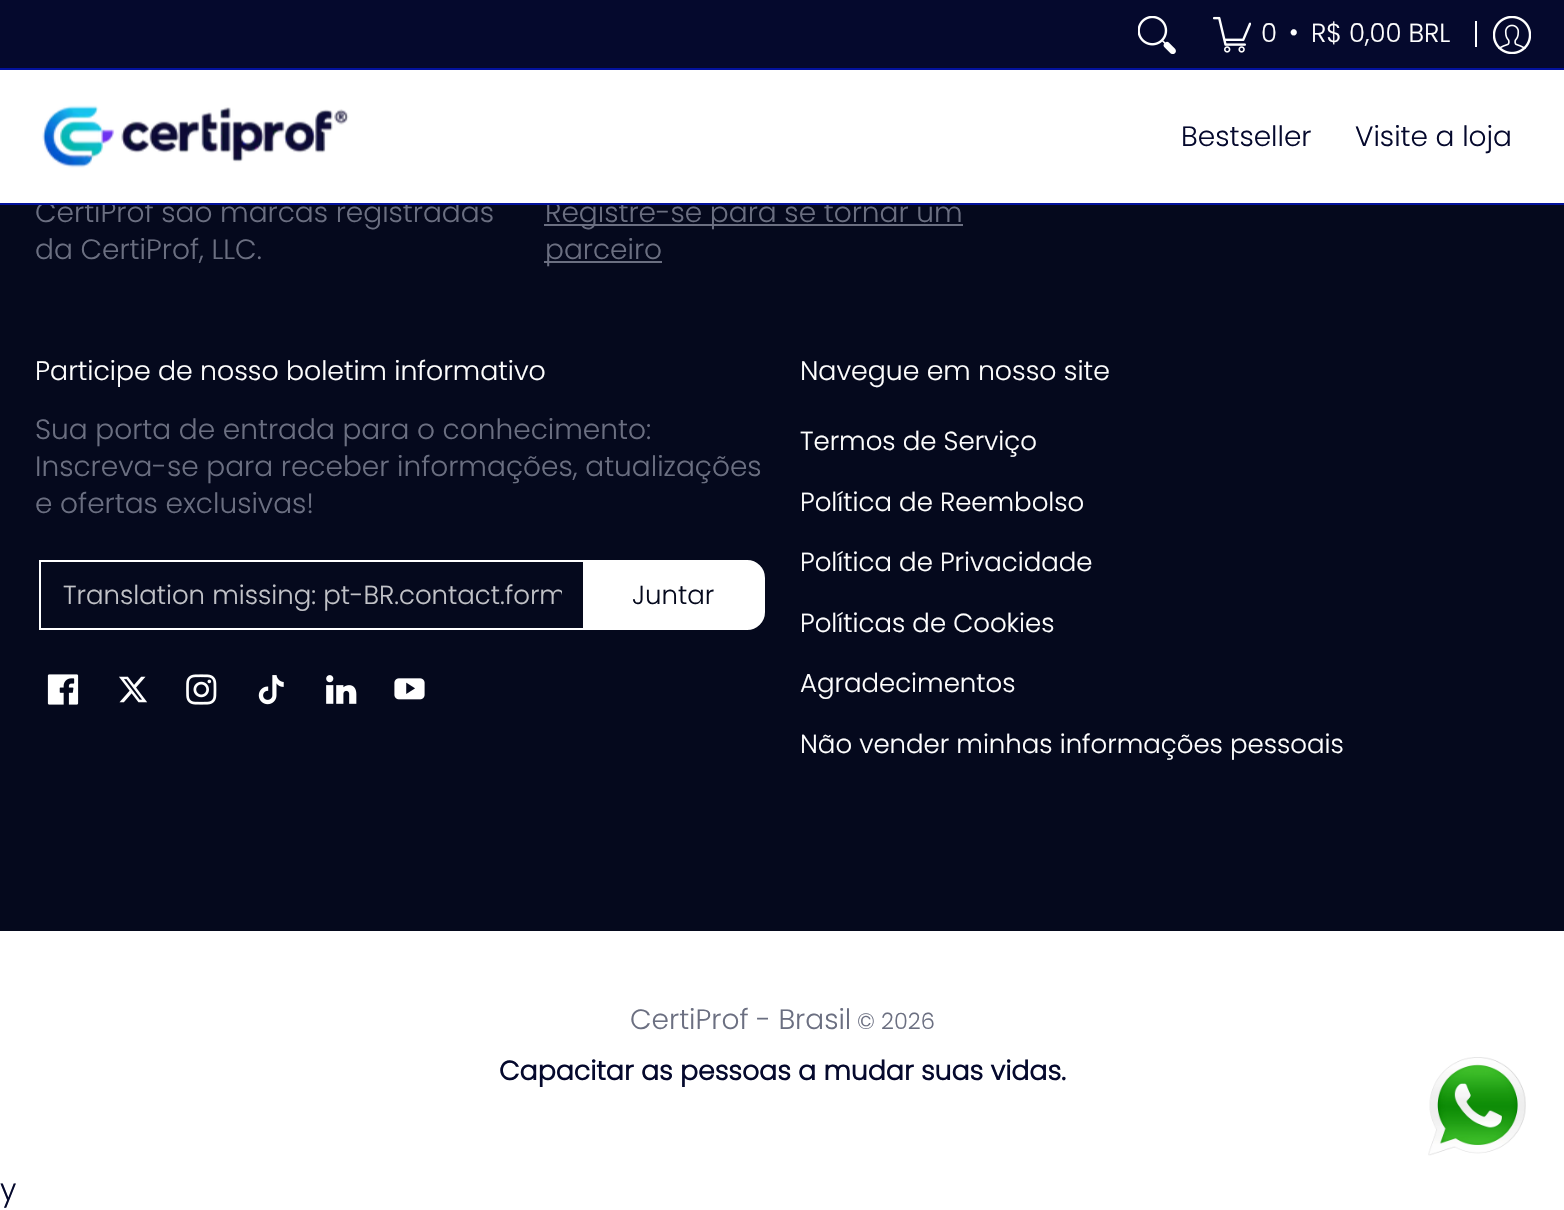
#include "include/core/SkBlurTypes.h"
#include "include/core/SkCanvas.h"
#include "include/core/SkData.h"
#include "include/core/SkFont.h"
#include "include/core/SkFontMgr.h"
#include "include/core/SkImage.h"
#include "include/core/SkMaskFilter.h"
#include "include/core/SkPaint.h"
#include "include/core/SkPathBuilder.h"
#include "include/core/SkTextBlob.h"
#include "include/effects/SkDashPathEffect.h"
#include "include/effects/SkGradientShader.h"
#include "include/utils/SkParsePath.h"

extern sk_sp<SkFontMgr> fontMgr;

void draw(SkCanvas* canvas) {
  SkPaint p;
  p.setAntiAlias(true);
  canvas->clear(SK_ColorWHITE);
  p.setColor(SkColorSetRGB(5, 9, 45));
  canvas->drawRect(SkRect::MakeLTRB(0, 0, 1564, 68), p);
  p.setColor(SkColorSetRGB(3, 18, 156));
  canvas->drawRect(SkRect::MakeLTRB(0, 68, 1564, 70), p);
  canvas->drawImageRect(SkImages::DeferredFromEncodedData(SkData::MakeFromFileName("images/1.png")), SkRect::MakeLTRB(1138, 16, 1176, 54), SkSamplingOptions());
  canvas->drawImageRect(SkImages::DeferredFromEncodedData(SkData::MakeFromFileName("images/2.png")), SkRect::MakeLTRB(1213, 16, 1251, 53), SkSamplingOptions());
  p.setColor(SK_ColorWHITE);
  canvas->drawRect(SkRect::MakeLTRB(1475, 21, 1477, 47), p);
  canvas->drawImageRect(SkImages::DeferredFromEncodedData(SkData::MakeFromFileName("images/3.png")), SkRect::MakeLTRB(1493, 16, 1531, 54), SkSamplingOptions());
  canvas->drawImageRect(SkImages::DeferredFromEncodedData(SkData::MakeFromFileName("images/4.png")), SkRect::MakeLTRB(42, 105, 349, 168), SkSamplingOptions());
  p.setColor(SkColorSetRGB(5, 9, 29));
  canvas->drawRect(SkRect::MakeLTRB(0, 205, 1564, 931), p);
  p.setColor(SkColorSetRGB(107, 111, 129));
  canvas->drawRect(SkRect::MakeLTRB(544, 224, 963, 226), p);
  canvas->drawRect(SkRect::MakeLTRB(544, 261, 662, 263), p);
  p.setStyle(SkPaint::kStroke_Style);
  p.setStrokeWidth(2);
  p.setColor(SK_ColorWHITE);
  canvas->drawRect(SkRect::MakeLTRB(40, 561, 585, 629), p);
  p.setStyle(SkPaint::kFill_Style);
  canvas->drawPath(SkPathBuilder().moveTo(584, 561).lineTo(747, 561).cubicTo(756.5f, 561, 764, 568.5f, 764, 578).lineTo(764, 612).cubicTo(764, 621.5f, 756.5f, 629, 747, 629).lineTo(584, 629).close().detach(), p);
  p.setStyle(SkPaint::kStroke_Style);
  canvas->drawPath(SkPathBuilder().moveTo(584, 561).lineTo(747, 561).cubicTo(756.5f, 561, 764, 568.5f, 764, 578).lineTo(764, 612).cubicTo(764, 621.5f, 756.5f, 629, 747, 629).lineTo(584, 629).close().detach(), p);
  canvas->drawImageRect(SkImages::DeferredFromEncodedData(SkData::MakeFromFileName("images/5.png")), SkRect::MakeLTRB(47, 674, 79, 705), SkSamplingOptions());
  canvas->drawImageRect(SkImages::DeferredFromEncodedData(SkData::MakeFromFileName("images/6.png")), SkRect::MakeLTRB(119, 676, 148, 703), SkSamplingOptions());
  canvas->drawImageRect(SkImages::DeferredFromEncodedData(SkData::MakeFromFileName("images/7.png")), SkRect::MakeLTRB(186, 674, 217, 705), SkSamplingOptions());
  canvas->drawImageRect(SkImages::DeferredFromEncodedData(SkData::MakeFromFileName("images/8.png")), SkRect::MakeLTRB(258, 675, 284, 705), SkSamplingOptions());
  canvas->drawImageRect(SkImages::DeferredFromEncodedData(SkData::MakeFromFileName("images/9.png")), SkRect::MakeLTRB(326, 675, 357, 704), SkSamplingOptions());
  canvas->drawImageRect(SkImages::DeferredFromEncodedData(SkData::MakeFromFileName("images/10.png")), SkRect::MakeLTRB(394, 678, 425, 700), SkSamplingOptions());
  canvas->drawImageRect(SkImages::DeferredFromEncodedData(SkData::MakeFromFileName("images/11.png")), SkRect::MakeLTRB(1428, 1057, 1526, 1156), SkSamplingOptions());
  SkFont font1(fontMgr->matchFamilyStyle("Poppins", SkFontStyle(300, SkFontStyle::kNormal_Width, SkFontStyle::kUpright_Slant)), 26);
  font1.setSubpixel(true);
  p.setStyle(SkPaint::kFill_Style);
  canvas->drawString("0", 1261, 42, font1, p);
  canvas->drawString("•", 1289, 41, font1, p);
  canvas->drawString("R$ 0,00 BRL", 1311, 42, font1, p);
  SkFont font2(fontMgr->matchFamilyStyle("Poppins", SkFontStyle(300, SkFontStyle::kNormal_Width, SkFontStyle::kUpright_Slant)), 28);
  font2.setSubpixel(true);
  p.setColor(SkColorSetRGB(5, 9, 45));
  canvas->drawString("Bestseller", 1181, 146, font2, p);
  canvas->drawString("Visite a loja", 1355, 146, font2, p);
  p.setColor(SkColorSetRGB(107, 111, 129));
  canvas->drawString("CertiProf são marcas registradas", 35, 222, font2, p);
  canvas->drawString("da CertiProf, LLC.", 35, 259, font2, p);
  canvas->drawString("Registre-se para se tornar um", 545, 222, font2, p);
  p.setColor(SkColorSetRGB(3, 18, 156));
  canvas->drawRect(SkRect::MakeLTRB(0, 203, 1564, 205), p);
  p.setColor(SK_ColorWHITE);
  canvas->drawRect(SkRect::MakeLTRB(42, 200, 829, 203), p);
  p.setColor(SkColorSetRGB(107, 111, 129));
  canvas->drawString("parceiro", 545, 259, font2, p);
  SkFont font3(fontMgr->matchFamilyStyle("Poppins", SkFontStyle(300, SkFontStyle::kNormal_Width, SkFontStyle::kUpright_Slant)), 26.75f);
  font3.setSubpixel(true);
  p.setColor(SK_ColorWHITE);
  canvas->drawString("Participe de nosso boletim informativo", 35, 380, font3, p);
  p.setColor(SkColorSetRGB(107, 111, 129));
  canvas->drawString("Sua porta de entrada para o conhecimento:", 35, 439, font2, p);
  canvas->drawString("Inscreva-se para receber informações, atualizações", 35, 476, font2, p);
  canvas->drawString("e ofertas exclusivas!", 35, 513, font2, p);
  canvas->save();
  canvas->clipRect(SkRect::MakeLTRB(63, 576, 562, 614));
  p.setColor(SkColorSetRGB(193, 194, 199));
  canvas->drawString("Translation missing: pt-BR.contact.form", 63, 604, font1, p);
  canvas->restore();
  p.setColor(SkColorSetRGB(5, 9, 29));
  canvas->drawString("Juntar", 632, 604, font1, p);
  p.setColor(SK_ColorWHITE);
  canvas->drawString("Navegue em nosso site", 800, 380, font3, p);
  canvas->drawString("Termos de Serviço", 800, 450, font1, p);
  canvas->drawString("Política de Reembolso", 800, 511, font1, p);
  canvas->drawString("Política de Privacidade", 800, 571, font1, p);
  canvas->drawString("Políticas de Cookies", 800, 632, font1, p);
  canvas->drawString("Agradecimentos", 800, 692, font1, p);
  canvas->drawString("Não vender minhas informações pessoais", 800, 753, font1, p);
  p.setColor(SkColorSetRGB(107, 111, 129));
  canvas->drawString("CertiProf - Brasil", 630, 1029, font2, p);
  SkFont font4(fontMgr->matchFamilyStyle("Poppins", SkFontStyle(300, SkFontStyle::kNormal_Width, SkFontStyle::kUpright_Slant)), 22.5f);
  font4.setSubpixel(true);
  canvas->drawString("© 2026", 857, 1029, font4, p);
  SkFont font5(fontMgr->matchFamilyStyle("Poppins", SkFontStyle::Bold()), 26.75f);
  font5.setSubpixel(true);
  p.setColor(SkColorSetRGB(5, 9, 45));
  canvas->drawString("Capacitar as pessoas a mudar suas vidas.", 499, 1080, font5, p);
  SkFont font6(fontMgr->matchFamilyStyle("Poppins", SkFontStyle(300, SkFontStyle::kNormal_Width, SkFontStyle::kUpright_Slant)), 30);
  font6.setSubpixel(true);
  canvas->drawString("y", 0, 1200, font6, p);
}
